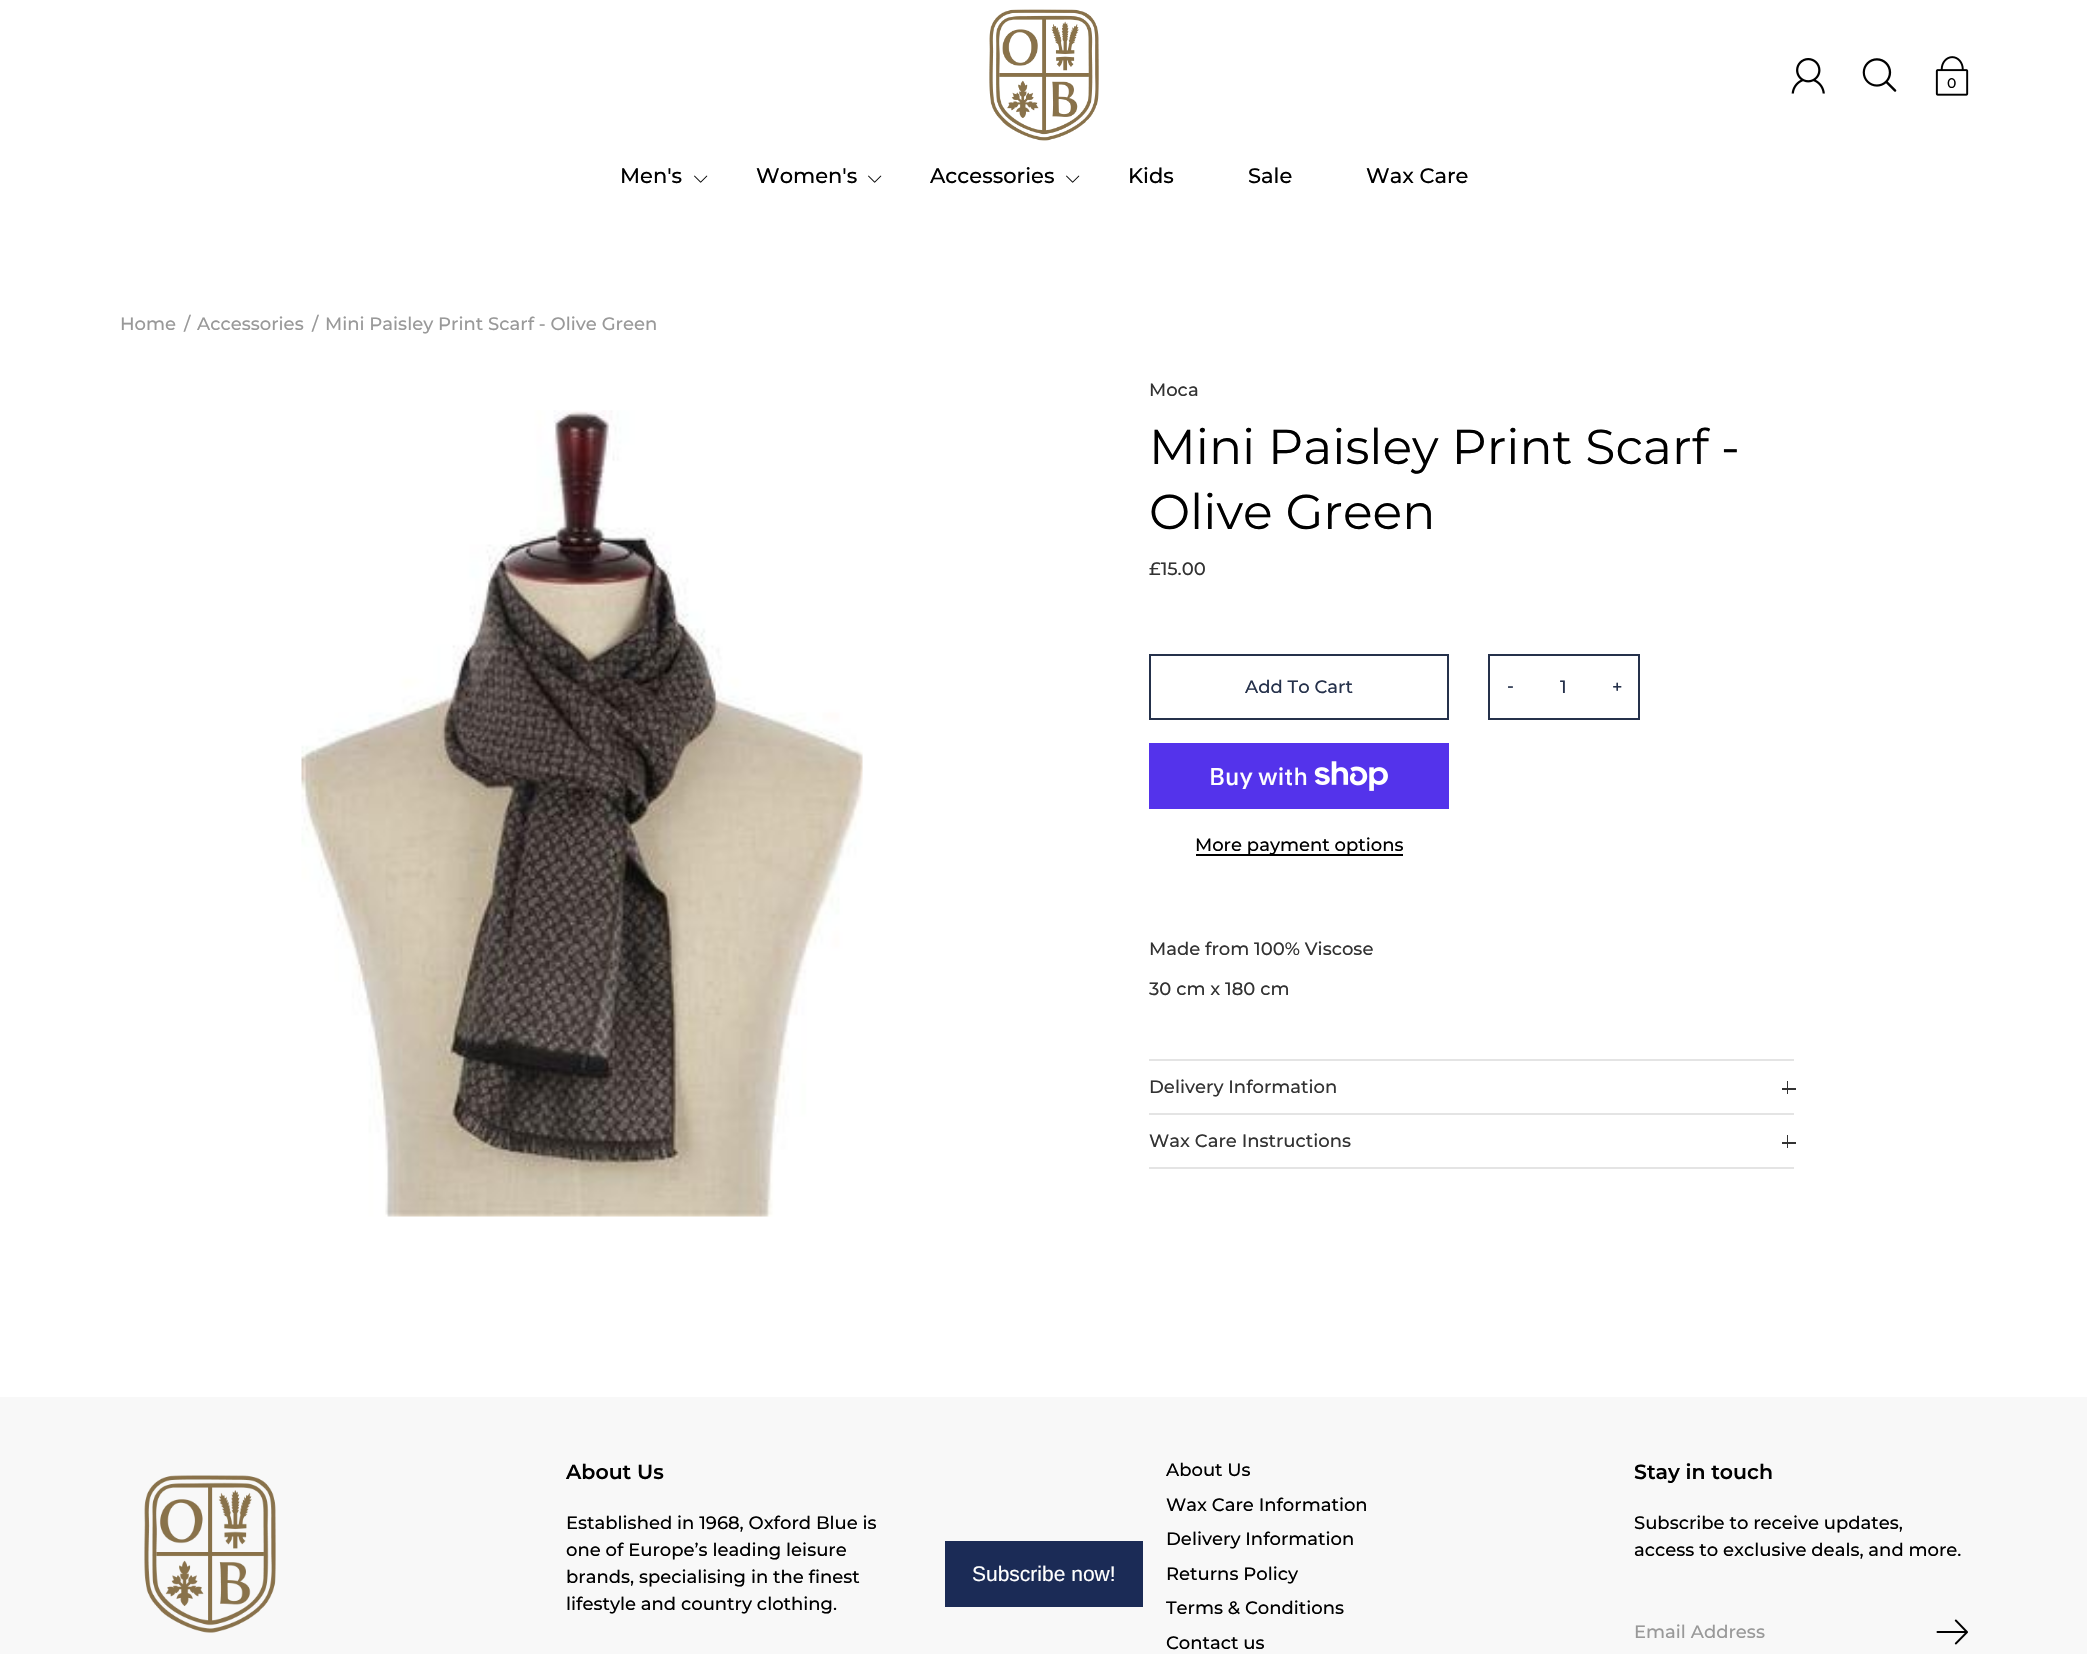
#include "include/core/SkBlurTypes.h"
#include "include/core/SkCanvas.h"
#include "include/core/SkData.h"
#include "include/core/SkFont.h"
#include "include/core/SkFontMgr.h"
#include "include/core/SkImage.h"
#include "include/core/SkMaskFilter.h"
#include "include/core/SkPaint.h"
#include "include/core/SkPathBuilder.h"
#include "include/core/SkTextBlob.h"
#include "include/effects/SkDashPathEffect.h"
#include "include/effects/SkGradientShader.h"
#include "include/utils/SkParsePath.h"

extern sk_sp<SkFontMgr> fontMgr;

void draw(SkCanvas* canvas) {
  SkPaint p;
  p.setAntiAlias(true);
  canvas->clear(SK_ColorWHITE);
  canvas->drawImageRect(SkImages::DeferredFromEncodedData(SkData::MakeFromFileName("images/1.png")), SkRect::MakeLTRB(989, 9, 1099, 141), SkSamplingOptions());
  canvas->drawImageRect(SkImages::DeferredFromEncodedData(SkData::MakeFromFileName("images/2.png")), SkRect::MakeLTRB(1791, 58, 1825, 94), SkSamplingOptions());
  canvas->drawImageRect(SkImages::DeferredFromEncodedData(SkData::MakeFromFileName("images/3.png")), SkRect::MakeLTRB(1862, 58, 1897, 92), SkSamplingOptions());
  canvas->drawImageRect(SkImages::DeferredFromEncodedData(SkData::MakeFromFileName("images/4.png")), SkRect::MakeLTRB(1935, 56, 1969, 96), SkSamplingOptions());
  canvas->drawImageRect(SkImages::DeferredFromEncodedData(SkData::MakeFromFileName("images/5.png")), SkRect::MakeLTRB(694, 175, 708, 183), SkSamplingOptions());
  canvas->drawImageRect(SkImages::DeferredFromEncodedData(SkData::MakeFromFileName("images/5.png")), SkRect::MakeLTRB(868, 175, 882, 183), SkSamplingOptions());
  canvas->drawImageRect(SkImages::DeferredFromEncodedData(SkData::MakeFromFileName("images/5.png")), SkRect::MakeLTRB(1066, 175, 1080, 183), SkSamplingOptions());
  canvas->drawImageRect(SkImages::DeferredFromEncodedData(SkData::MakeFromFileName("images/6.png")), SkRect::MakeLTRB(301, 410, 863, 1217), SkSamplingOptions());
  p.setStyle(SkPaint::kStroke_Style);
  p.setStrokeWidth(2);
  p.setColor(SkColorSetRGB(37, 49, 75));
  canvas->drawRect(SkRect::MakeLTRB(1150, 655, 1448, 719), p);
  canvas->drawRect(SkRect::MakeLTRB(1489, 655, 1639, 719), p);
  p.setStyle(SkPaint::kFill_Style);
  p.setColor(SkColorSetRGB(84, 51, 235));
  canvas->drawRect(SkRect::MakeLTRB(1149, 743, 1449, 809), p);
  canvas->drawImageRect(SkImages::DeferredFromEncodedData(SkData::MakeFromFileName("images/7.png")), SkRect::MakeLTRB(1314, 761, 1388, 791), SkSamplingOptions());
  p.setColor(SK_ColorBLACK);
  canvas->drawRect(SkRect::MakeLTRB(1196, 854, 1403, 856), p);
  p.setColor(SkColorSetRGB(228, 228, 228));
  canvas->drawRect(SkRect::MakeLTRB(1149, 1059, 1794, 1061), p);
  canvas->drawRect(SkRect::MakeLTRB(1149, 1113, 1794, 1115), p);
  p.setColor(SkColorSetRGB(51, 51, 51));
  canvas->drawRect(SkRect::MakeLTRB(1787, 1081, 1788, 1094), p);
  canvas->drawRect(SkRect::MakeLTRB(1782, 1088, 1796, 1090), p);
  p.setColor(SkColorSetRGB(228, 228, 228));
  canvas->drawRect(SkRect::MakeLTRB(1149, 1167, 1794, 1169), p);
  p.setColor(SkColorSetRGB(51, 51, 51));
  canvas->drawRect(SkRect::MakeLTRB(1787, 1135, 1788, 1148), p);
  canvas->drawRect(SkRect::MakeLTRB(1782, 1142, 1796, 1144), p);
  p.setColor(SkColorSetRGB(248, 248, 248));
  canvas->drawRect(SkRect::MakeLTRB(0, 1397, 2087, 1654), p);
  canvas->drawImageRect(SkImages::DeferredFromEncodedData(SkData::MakeFromFileName("images/8.png")), SkRect::MakeLTRB(144, 1475, 276, 1633), SkSamplingOptions());
  canvas->drawImageRect(SkImages::DeferredFromEncodedData(SkData::MakeFromFileName("images/9.png")), SkRect::MakeLTRB(1936, 1619, 1968, 1645), SkSamplingOptions());
  p.setColor(SkColorSetRGB(27, 43, 86));
  canvas->drawRect(SkRect::MakeLTRB(945, 1541, 1143, 1607), p);
  SkFont font1(fontMgr->matchFamilyStyle("Montserrat", SkFontStyle(500, SkFontStyle::kNormal_Width, SkFontStyle::kUpright_Slant)), 14);
  font1.setSubpixel(true);
  p.setColor(SK_ColorBLACK);
  canvas->drawString("0", 1947, 88, font1, p);
  SkFont font2(fontMgr->matchFamilyStyle("Montserrat", SkFontStyle(500, SkFontStyle::kNormal_Width, SkFontStyle::kUpright_Slant)), 21);
  font2.setSubpixel(true);
  canvas->drawString("Men's", 620, 183, font2, p);
  canvas->drawString("Women's", 756, 183, font2, p);
  canvas->drawString("Accessories", 930, 183, font2, p);
  canvas->drawString("Kids", 1128, 183, font2, p);
  canvas->drawString("Sale", 1248, 183, font2, p);
  canvas->drawString("Wax Care", 1366, 183, font2, p);
  SkFont font3(fontMgr->matchFamilyStyle("Montserrat", SkFontStyle(500, SkFontStyle::kNormal_Width, SkFontStyle::kUpright_Slant)), 18);
  font3.setSubpixel(true);
  p.setColor(SkColorSetRGB(153, 153, 153));
  canvas->drawString("Home", 120, 330, font3, p);
  canvas->drawString("/", 184, 330, font3, p);
  canvas->drawString("Accessories", 197, 330, font3, p);
  canvas->drawString("/", 312, 330, font3, p);
  canvas->drawString("Mini Paisley Print Scarf - Olive Green", 325, 330, font3, p);
  p.setColor(SkColorSetRGB(51, 51, 51));
  canvas->drawString("Moca", 1149, 396, font3, p);
  SkFont font4(fontMgr->matchFamilyStyle("Montserrat", SkFontStyle::Normal()), 49);
  font4.setSubpixel(true);
  p.setColor(SK_ColorBLACK);
  canvas->drawString("Mini Paisley Print Scarf -", 1149, 464, font4, p);
  canvas->drawString("Olive Green", 1149, 529, font4, p);
  p.setColor(SkColorSetRGB(51, 51, 51));
  canvas->drawString("£15.00", 1149, 575, font3, p);
  p.setColor(SkColorSetRGB(37, 49, 75));
  canvas->drawString("Add To Cart", 1245, 693, font3, p);
  canvas->drawString("-", 1507, 692, font3, p);
  canvas->drawString("1", 1560, 693, font3, p);
  canvas->drawString("+", 1612, 693, font3, p);
  SkFont font5(fontMgr->matchFamilyStyle("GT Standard", SkFontStyle(500, SkFontStyle::kNormal_Width, SkFontStyle::kUpright_Slant)), 24);
  font5.setSubpixel(true);
  p.setColor(SK_ColorWHITE);
  canvas->drawString("Buy with", 1209, 785, font5, p);
  p.setColor(SK_ColorBLACK);
  canvas->drawString("More payment options", 1195, 851, font3, p);
  p.setColor(SkColorSetRGB(51, 51, 51));
  canvas->drawString("Made from 100% Viscose", 1149, 955, font3, p);
  canvas->drawString("30 cm x 180 cm", 1149, 995, font3, p);
  canvas->drawString("Delivery Information", 1149, 1093, font3, p);
  canvas->drawString("Wax Care Instructions", 1149, 1147, font3, p);
  SkFont font6(fontMgr->matchFamilyStyle("Montserrat", SkFontStyle(600, SkFontStyle::kNormal_Width, SkFontStyle::kUpright_Slant)), 20.5f);
  font6.setSubpixel(true);
  p.setColor(SK_ColorBLACK);
  canvas->drawString("About Us", 566, 1479, font6, p);
  canvas->drawString("Established in 1968, Oxford Blue is", 566, 1529, font3, p);
  canvas->drawString("one of Europe’s leading leisure", 566, 1556, font3, p);
  canvas->drawString("brands, specialising in the finest", 566, 1583, font3, p);
  canvas->drawString("lifestyle and country clothing.", 566, 1610, font3, p);
  canvas->drawString("About Us", 1166, 1476, font3, p);
  canvas->drawString("Wax Care Information", 1166, 1511, font3, p);
  canvas->drawString("Delivery Information", 1166, 1545, font3, p);
  canvas->drawString("Returns Policy", 1166, 1580, font3, p);
  canvas->drawString("Terms & Conditions", 1166, 1614, font3, p);
  canvas->drawString("Contact us", 1166, 1649, font3, p);
  canvas->drawString("Stay in touch", 1634, 1479, font6, p);
  canvas->drawString("Subscribe to receive updates,", 1634, 1529, font3, p);
  canvas->drawString("access to exclusive deals, and more.", 1634, 1556, font3, p);
  p.setColor(SkColorSetRGB(153, 153, 153));
  canvas->drawString("Email Address", 1634, 1638, font3, p);
  SkFont font7(fontMgr->matchFamilyStyle("Liberation Sans", SkFontStyle::Normal()), 21);
  font7.setSubpixel(true);
  p.setColor(SK_ColorWHITE);
  canvas->drawString("Subscribe now!", 972, 1581, font7, p);
}
